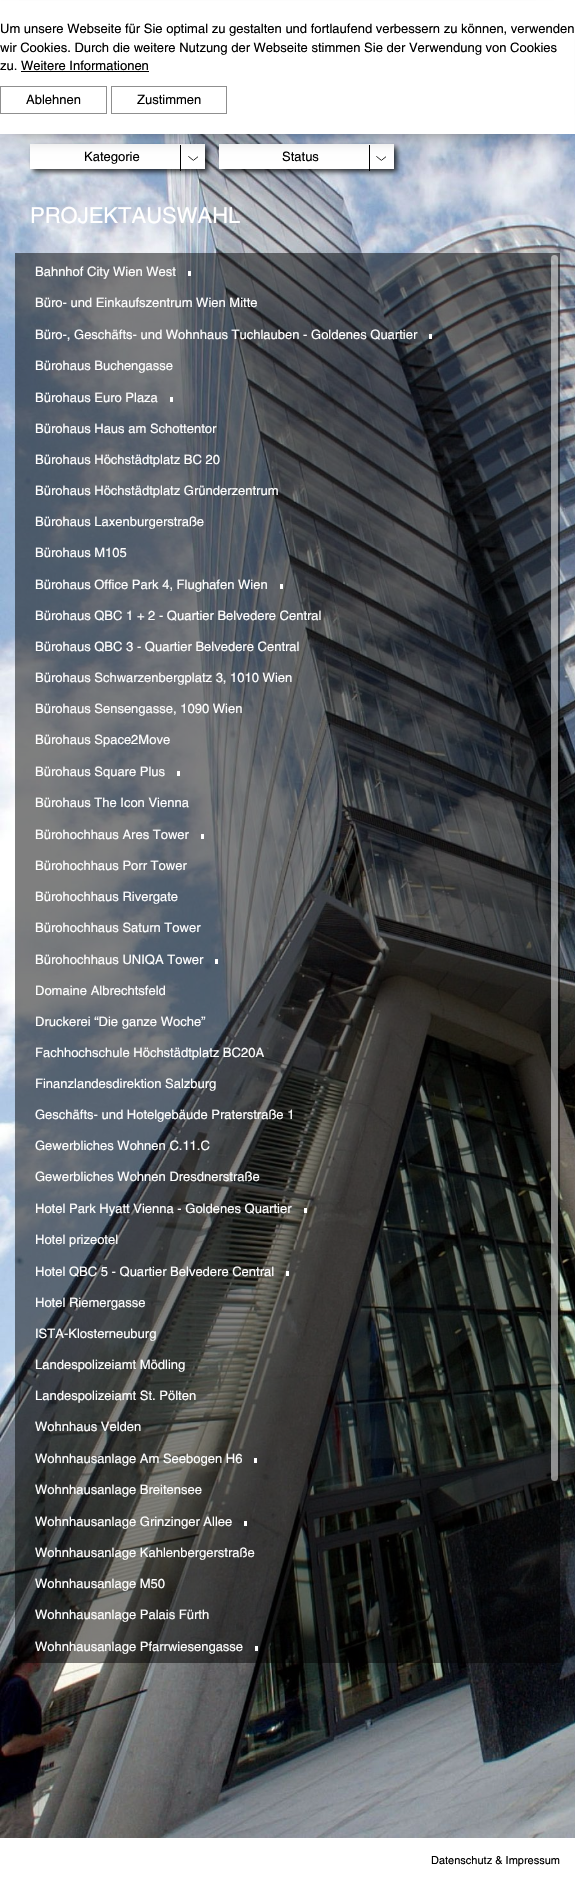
#include "include/core/SkBlurTypes.h"
#include "include/core/SkCanvas.h"
#include "include/core/SkData.h"
#include "include/core/SkFont.h"
#include "include/core/SkFontMgr.h"
#include "include/core/SkImage.h"
#include "include/core/SkMaskFilter.h"
#include "include/core/SkPaint.h"
#include "include/core/SkPathBuilder.h"
#include "include/core/SkTextBlob.h"
#include "include/effects/SkDashPathEffect.h"
#include "include/effects/SkGradientShader.h"
#include "include/utils/SkParsePath.h"

extern sk_sp<SkFontMgr> fontMgr;

void draw(SkCanvas* canvas) {
  SkPaint p;
  p.setAntiAlias(true);
  canvas->clear(SK_ColorWHITE);
  canvas->drawImageRect(SkImages::DeferredFromEncodedData(SkData::MakeFromFileName("images/1.png")), SkRect::MakeLTRB(0, 134, 575, 1838), SkSamplingOptions());
  p.setColor(SkColorSetARGB(191, 0, 0, 0));
  p.setMaskFilter(SkMaskFilter::MakeBlur(kNormal_SkBlurStyle, 2.5f));
  canvas->drawRect(SkRect::MakeLTRB(33, 147, 208, 172), p);
  p.setMaskFilter(nullptr);
  p.setColor(SK_ColorWHITE);
  canvas->drawRect(SkRect::MakeLTRB(30, 144, 205, 169), p);
  p.setColor(SK_ColorBLACK);
  canvas->drawRect(SkRect::MakeLTRB(180, 145, 181, 171), p);
  canvas->drawImageRect(SkImages::DeferredFromEncodedData(SkData::MakeFromFileName("images/2.png")), SkRect::MakeLTRB(188, 156, 198, 161), SkSamplingOptions());
  p.setColor(SkColorSetARGB(191, 0, 0, 0));
  p.setMaskFilter(SkMaskFilter::MakeBlur(kNormal_SkBlurStyle, 2.5f));
  canvas->drawRect(SkRect::MakeLTRB(222, 147, 397, 172), p);
  p.setMaskFilter(nullptr);
  p.setColor(SK_ColorWHITE);
  canvas->drawRect(SkRect::MakeLTRB(219, 144, 394, 169), p);
  p.setColor(SK_ColorBLACK);
  canvas->drawRect(SkRect::MakeLTRB(369, 145, 370, 171), p);
  canvas->drawImageRect(SkImages::DeferredFromEncodedData(SkData::MakeFromFileName("images/2.png")), SkRect::MakeLTRB(376, 156, 386, 161), SkSamplingOptions());
  p.setMaskFilter(SkMaskFilter::MakeBlur(kNormal_SkBlurStyle, 12.5f));
  canvas->drawRect(SkRect::MakeLTRB(10, 30, 545, 124), p);
  p.setMaskFilter(nullptr);
  p.setColor(SK_ColorWHITE);
  canvas->drawRect(SkRect::MakeLTRB(0, 1, 574, 134), p);
  p.setColor(SK_ColorBLACK);
  canvas->drawRect(SkRect::MakeLTRB(21, 71, 149, 72), p);
  p.setStyle(SkPaint::kStroke_Style);
  p.setStrokeWidth(1);
  p.setColor(SkColorSetRGB(143, 143, 143));
  canvas->drawRect(SkRect::MakeLTRB(0.5f, 86.5f, 106.5f, 113.5f), p);
  canvas->drawRect(SkRect::MakeLTRB(111.5f, 86.5f, 226.5f, 113.5f), p);
  p.setStyle(SkPaint::kFill_Style);
  p.setColor(SkColorSetARGB(128, 0, 0, 0));
  canvas->drawRect(SkRect::MakeLTRB(15, 253, 560, 1663), p);
  p.setColor(SK_ColorWHITE);
  canvas->drawRect(SkRect::MakeLTRB(188, 271, 191, 276), p);
  canvas->drawRect(SkRect::MakeLTRB(429, 334, 432, 339), p);
  canvas->drawRect(SkRect::MakeLTRB(170, 397, 173, 402), p);
  canvas->drawRect(SkRect::MakeLTRB(280, 584, 283, 589), p);
  canvas->drawRect(SkRect::MakeLTRB(177, 771, 180, 776), p);
  canvas->drawRect(SkRect::MakeLTRB(201, 834, 204, 839), p);
  canvas->drawRect(SkRect::MakeLTRB(215, 959, 218, 964), p);
  canvas->drawRect(SkRect::MakeLTRB(304, 1208, 307, 1213), p);
  canvas->drawRect(SkRect::MakeLTRB(286, 1271, 289, 1276), p);
  canvas->drawRect(SkRect::MakeLTRB(254, 1458, 257, 1463), p);
  canvas->drawRect(SkRect::MakeLTRB(244, 1521, 247, 1526), p);
  canvas->drawRect(SkRect::MakeLTRB(255, 1646, 258, 1651), p);
  p.setColor(SkColorSetARGB(128, 255, 255, 255));
  canvas->drawRoundRect(SkRect::MakeLTRB(551, 255, 558, 1481), 3.5f, 3.5f, p);
  SkFont font1(fontMgr->matchFamilyStyle("Helvetica", SkFontStyle::Normal()), 13);
  font1.setSubpixel(true);
  p.setColor(SK_ColorBLACK);
  canvas->drawString("Um unsere Webseite für Sie optimal zu gestalten und fortlaufend verbessern zu können, verwenden", 0, 33, font1, p);
  canvas->drawString("wir Cookies. Durch die weitere Nutzung der Webseite stimmen Sie der Verwendung von Cookies", 0, 52, font1, p);
  canvas->drawString("zu. Weitere Informationen", 0, 70, font1, p);
  canvas->drawString("Ablehnen", 26, 104, font1, p);
  canvas->drawString("Zustimmen", 137, 104, font1, p);
  canvas->drawString("Kategorie", 84, 161, font1, p);
  canvas->drawString("Status", 282, 161, font1, p);
  SkFont font2(fontMgr->matchFamilyStyle("Helvetica", SkFontStyle::Normal()), 22);
  font2.setSubpixel(true);
  p.setColor(SK_ColorWHITE);
  canvas->drawString("PROJEKTAUSWAHL", 30, 223, font2, p);
  canvas->drawString("Bahnhof City Wien West", 35, 276, font1, p);
  canvas->drawString("Büro- und Einkaufszentrum Wien Mitte", 35, 307, font1, p);
  canvas->drawString("Büro-, Geschäfts- und Wohnhaus Tuchlauben - Goldenes Quartier", 35, 339, font1, p);
  canvas->drawString("Bürohaus Buchengasse", 35, 370, font1, p);
  canvas->drawString("Bürohaus Euro Plaza", 35, 402, font1, p);
  canvas->drawString("Bürohaus Haus am Schottentor", 35, 433, font1, p);
  canvas->drawString("Bürohaus Höchstädtplatz BC 20", 35, 464, font1, p);
  canvas->drawString("Bürohaus Höchstädtplatz Gründerzentrum", 35, 495, font1, p);
  canvas->drawString("Bürohaus Laxenburgerstraße", 35, 526, font1, p);
  canvas->drawString("Bürohaus M105", 35, 557, font1, p);
  canvas->drawString("Bürohaus Office Park 4, Flughafen Wien", 35, 589, font1, p);
  canvas->drawString("Bürohaus QBC 1 + 2 - Quartier Belvedere Central", 35, 620, font1, p);
  canvas->drawString("Bürohaus QBC 3 - Quartier Belvedere Central", 35, 651, font1, p);
  canvas->drawString("Bürohaus Schwarzenbergplatz 3, 1010 Wien", 35, 682, font1, p);
  canvas->drawString("Bürohaus Sensengasse, 1090 Wien", 35, 713, font1, p);
  canvas->drawString("Bürohaus Space2Move", 35, 744, font1, p);
  canvas->drawString("Bürohaus Square Plus", 35, 776, font1, p);
  canvas->drawString("Bürohaus The Icon Vienna", 35, 807, font1, p);
  canvas->drawString("Bürohochhaus Ares Tower", 35, 839, font1, p);
  canvas->drawString("Bürohochhaus Porr Tower", 35, 870, font1, p);
  canvas->drawString("Bürohochhaus Rivergate", 35, 901, font1, p);
  canvas->drawString("Bürohochhaus Saturn Tower", 35, 932, font1, p);
  canvas->drawString("Bürohochhaus UNIQA Tower", 35, 964, font1, p);
  canvas->drawString("Domaine Albrechtsfeld", 35, 995, font1, p);
  canvas->drawString("Druckerei “Die ganze Woche”", 35, 1026, font1, p);
  canvas->drawString("Fachhochschule Höchstädtplatz BC20A", 35, 1057, font1, p);
  canvas->drawString("Finanzlandesdirektion Salzburg", 35, 1088, font1, p);
  canvas->drawString("Geschäfts- und Hotelgebäude Praterstraße 1", 35, 1119, font1, p);
  canvas->drawString("Gewerbliches Wohnen C.11.C", 35, 1150, font1, p);
  canvas->drawString("Gewerbliches Wohnen Dresdnerstraße", 35, 1181, font1, p);
  canvas->drawString("Hotel Park Hyatt Vienna - Goldenes Quartier", 35, 1213, font1, p);
  canvas->drawString("Hotel prizeotel", 35, 1244, font1, p);
  canvas->drawString("Hotel QBC 5 - Quartier Belvedere Central", 35, 1276, font1, p);
  canvas->drawString("Hotel Riemergasse", 35, 1307, font1, p);
  canvas->drawString("ISTA-Klosterneuburg", 35, 1338, font1, p);
  canvas->drawString("Landespolizeiamt Mödling", 35, 1369, font1, p);
  canvas->drawString("Landespolizeiamt St. Pölten", 35, 1400, font1, p);
  canvas->drawString("Wohnhaus Velden", 35, 1431, font1, p);
  canvas->drawString("Wohnhausanlage Am Seebogen H6", 35, 1463, font1, p);
  canvas->drawString("Wohnhausanlage Breitensee", 35, 1494, font1, p);
  canvas->drawString("Wohnhausanlage Grinzinger Allee", 35, 1526, font1, p);
  canvas->drawString("Wohnhausanlage Kahlenbergerstraße", 35, 1557, font1, p);
  canvas->drawString("Wohnhausanlage M50", 35, 1588, font1, p);
  canvas->drawString("Wohnhausanlage Palais Fürth", 35, 1619, font1, p);
  canvas->drawString("Wohnhausanlage Pfarrwiesengasse", 35, 1651, font1, p);
  SkFont font3(fontMgr->matchFamilyStyle("Helvetica", SkFontStyle::Normal()), 11);
  font3.setSubpixel(true);
  p.setColor(SK_ColorBLACK);
  canvas->drawString("Datenschutz & Impressum", 431, 1864, font3, p);
}
